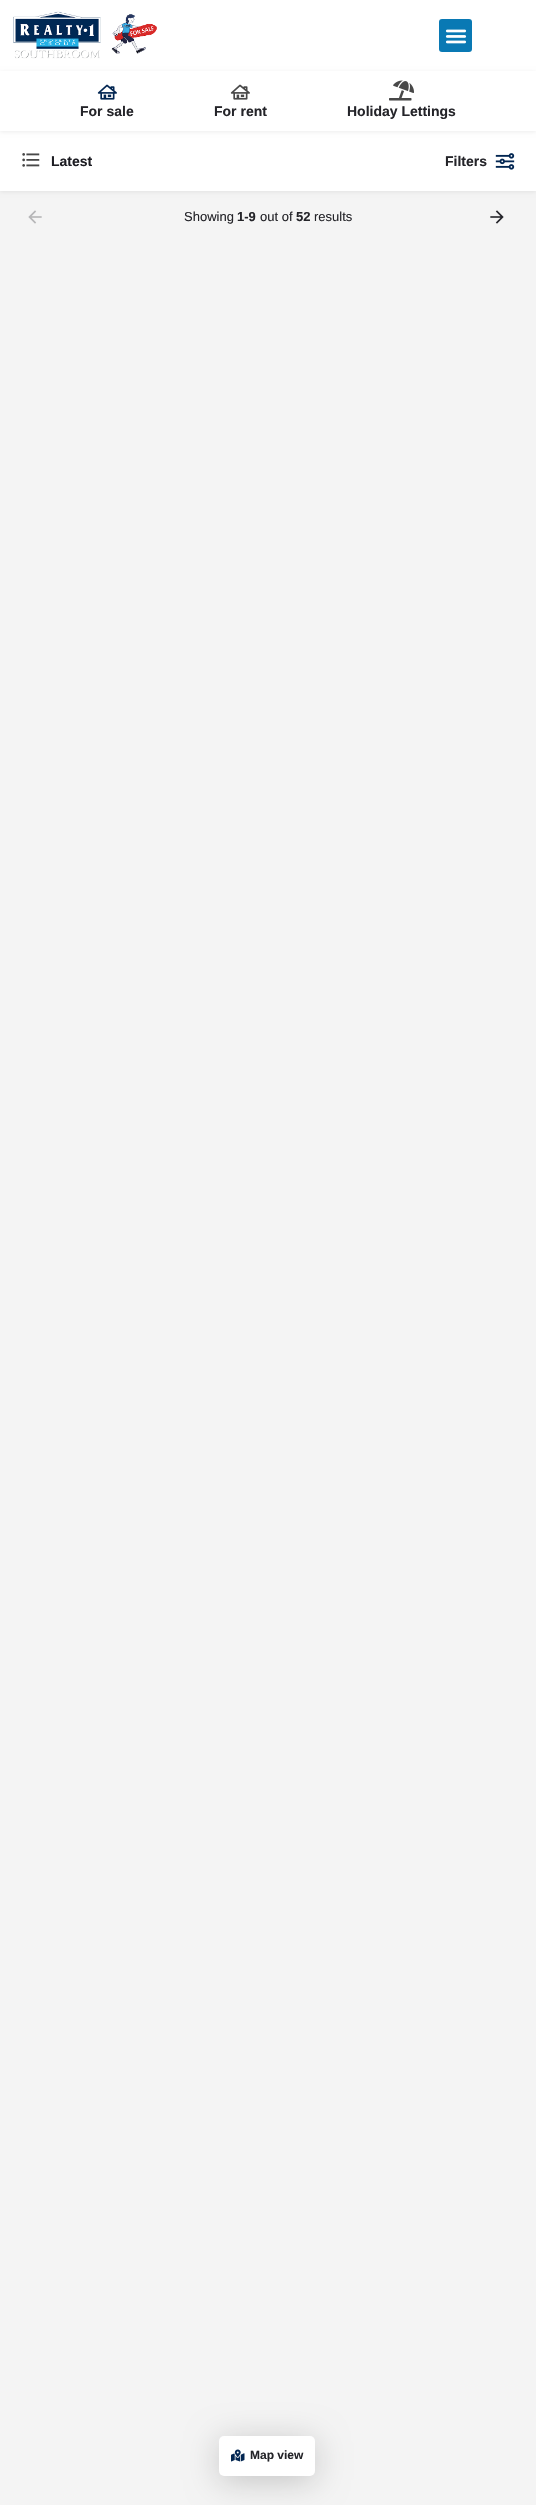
#include "include/core/SkBlurTypes.h"
#include "include/core/SkCanvas.h"
#include "include/core/SkData.h"
#include "include/core/SkFont.h"
#include "include/core/SkFontMgr.h"
#include "include/core/SkImage.h"
#include "include/core/SkMaskFilter.h"
#include "include/core/SkPaint.h"
#include "include/core/SkPathBuilder.h"
#include "include/core/SkTextBlob.h"
#include "include/effects/SkDashPathEffect.h"
#include "include/effects/SkGradientShader.h"
#include "include/utils/SkParsePath.h"

extern sk_sp<SkFontMgr> fontMgr;

void draw(SkCanvas* canvas) {
  SkPaint p;
  p.setAntiAlias(true);
  canvas->clear(SK_ColorWHITE);
  canvas->drawImageRect(SkImages::DeferredFromEncodedData(SkData::MakeFromFileName("images/1.png")), SkRect::MakeLTRB(13, 11, 157, 59), SkSamplingOptions());
  p.setColor(SkColorSetRGB(9, 121, 180));
  canvas->drawRoundRect(SkRect::MakeLTRB(439, 19, 472, 52), 3, 3, p);
  canvas->drawImageRect(SkImages::DeferredFromEncodedData(SkData::MakeFromFileName("images/2.png")), SkRect::MakeLTRB(445, 29, 467, 44), SkSamplingOptions());
  p.setColor(SkColorSetRGB(244, 244, 244));
  canvas->drawRect(SkRect::MakeLTRB(0, 191, 536, 2505), p);
  p.setColor(SkColorSetARGB(18, 0, 0, 0));
  p.setMaskFilter(SkMaskFilter::MakeBlur(kNormal_SkBlurStyle, 2));
  canvas->drawRect(SkRect::MakeLTRB(0, 132, 536, 192), p);
  p.setMaskFilter(nullptr);
  p.setColor(SK_ColorWHITE);
  canvas->drawRect(SkRect::MakeLTRB(0, 131, 536, 191), p);
  p.setColor(SkColorSetARGB(18, 0, 0, 0));
  p.setMaskFilter(SkMaskFilter::MakeBlur(kNormal_SkBlurStyle, 2));
  canvas->drawRect(SkRect::MakeLTRB(0, 72, 536, 132), p);
  p.setMaskFilter(nullptr);
  p.setColor(SK_ColorWHITE);
  canvas->drawRect(SkRect::MakeLTRB(0, 71, 536, 131), p);
  canvas->drawImageRect(SkImages::DeferredFromEncodedData(SkData::MakeFromFileName("images/3.png")), SkRect::MakeLTRB(97, 84, 117, 100), SkSamplingOptions());
  canvas->drawImageRect(SkImages::DeferredFromEncodedData(SkData::MakeFromFileName("images/4.png")), SkRect::MakeLTRB(230, 84, 250, 100), SkSamplingOptions());
  canvas->drawImageRect(SkImages::DeferredFromEncodedData(SkData::MakeFromFileName("images/5.png")), SkRect::MakeLTRB(389, 80, 414, 101), SkSamplingOptions());
  canvas->drawImageRect(SkImages::DeferredFromEncodedData(SkData::MakeFromFileName("images/6.png")), SkRect::MakeLTRB(22, 153, 40, 167), SkSamplingOptions());
  canvas->drawImageRect(SkImages::DeferredFromEncodedData(SkData::MakeFromFileName("images/7.png")), SkRect::MakeLTRB(495, 153, 515, 170), SkSamplingOptions());
  canvas->drawImageRect(SkImages::DeferredFromEncodedData(SkData::MakeFromFileName("images/8.png")), SkRect::MakeLTRB(28, 210, 42, 224), SkSamplingOptions());
  canvas->drawImageRect(SkImages::DeferredFromEncodedData(SkData::MakeFromFileName("images/9.png")), SkRect::MakeLTRB(490, 210, 504, 224), SkSamplingOptions());
  p.setColor(SkColorSetARGB(51, 0, 0, 0));
  p.setMaskFilter(SkMaskFilter::MakeBlur(kNormal_SkBlurStyle, 16.5f));
  canvas->drawRoundRect(SkRect::MakeLTRB(219, 2441, 315, 2481), 5, 5, p);
  p.setMaskFilter(nullptr);
  p.setColor(SK_ColorWHITE);
  canvas->drawRoundRect(SkRect::MakeLTRB(219, 2436, 315, 2476), 5, 5, p);
  canvas->drawImageRect(SkImages::DeferredFromEncodedData(SkData::MakeFromFileName("images/10.png")), SkRect::MakeLTRB(231, 2449, 245, 2462), SkSamplingOptions());
  SkFont font1(fontMgr->matchFamilyStyle("Liberation Sans", SkFontStyle::Bold()), 14);
  font1.setSubpixel(true);
  p.setColor(SkColorSetRGB(36, 36, 41));
  canvas->drawString("For sale", 80, 116, font1, p);
  canvas->drawString("For rent", 214, 116, font1, p);
  canvas->drawString("Holiday Lettings", 347, 116, font1, p);
  p.setColor(SkColorSetRGB(29, 29, 35));
  canvas->drawString("Latest", 51, 166, font1, p);
  p.setColor(SkColorSetRGB(36, 36, 41));
  canvas->drawString("Filters", 445, 166, font1, p);
  SkFont font2(fontMgr->matchFamilyStyle("Liberation Sans", SkFontStyle::Normal()), 13);
  font2.setSubpixel(true);
  canvas->drawString("Showing", 184, 221, font2, p);
  SkFont font3(fontMgr->matchFamilyStyle("Liberation Sans", SkFontStyle::Bold()), 13);
  font3.setSubpixel(true);
  canvas->drawString("1-9", 237, 221, font3, p);
  canvas->drawString("out of", 260, 221, font2, p);
  canvas->drawString("52", 296, 221, font3, p);
  canvas->drawString("results", 314, 221, font2, p);
  SkFont font4(fontMgr->matchFamilyStyle("Liberation Sans", SkFontStyle::Bold()), 12);
  font4.setSubpixel(true);
  canvas->drawString("Map view", 250, 2459, font4, p);
}
